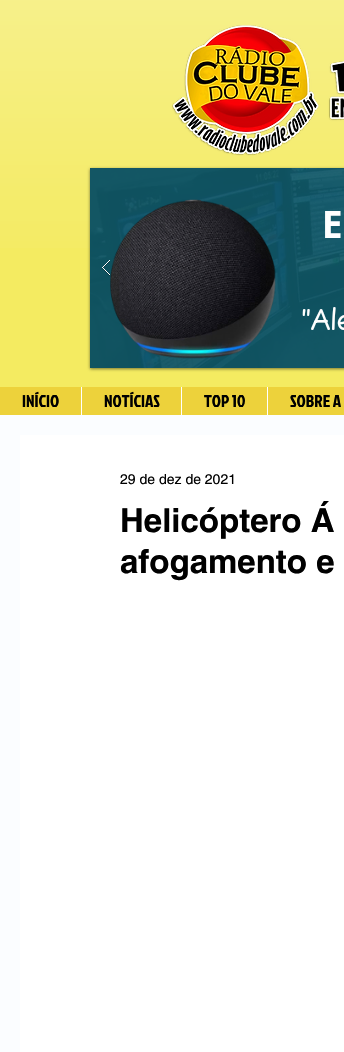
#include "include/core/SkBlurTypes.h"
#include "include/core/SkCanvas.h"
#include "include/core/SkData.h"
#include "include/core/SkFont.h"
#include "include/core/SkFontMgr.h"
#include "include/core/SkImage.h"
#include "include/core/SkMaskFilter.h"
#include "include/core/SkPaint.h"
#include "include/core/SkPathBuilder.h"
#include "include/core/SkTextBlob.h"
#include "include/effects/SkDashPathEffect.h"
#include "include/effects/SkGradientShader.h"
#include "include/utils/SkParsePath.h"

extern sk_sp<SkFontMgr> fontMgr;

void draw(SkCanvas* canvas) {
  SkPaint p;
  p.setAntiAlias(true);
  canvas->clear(SkColorSetRGB(251, 253, 255));
  p.setColor(SkColorSetRGB(244, 235, 97));
  canvas->drawRect(SkRect::MakeLTRB(0, 0, 344, 387), p);
  canvas->drawImageRect(SkImages::DeferredFromEncodedData(SkData::MakeFromFileName("images/1.png")), SkRect::MakeLTRB(0, 0, 344, 248), SkSamplingOptions());
  canvas->drawImageRect(SkImages::DeferredFromEncodedData(SkData::MakeFromFileName("images/2.png")), SkRect::MakeLTRB(172, 25, 344, 156), SkSamplingOptions());
  p.setColor(SkColorSetARGB(128, 0, 0, 0));
  p.setMaskFilter(SkMaskFilter::MakeBlur(kNormal_SkBlurStyle, 1.5f));
  canvas->drawRect(SkRect::MakeLTRB(90, 169, 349, 369), p);
  p.setMaskFilter(nullptr);
  canvas->drawImageRect(SkImages::DeferredFromEncodedData(SkData::MakeFromFileName("images/3.png")), SkRect::MakeLTRB(90, 168, 344, 368), SkSamplingOptions());
  canvas->drawImageRect(SkImages::DeferredFromEncodedData(SkData::MakeFromFileName("images/4.png")), SkRect::MakeLTRB(102, 260, 110, 276), SkSamplingOptions());
  p.setColor(SkColorSetRGB(237, 210, 59));
  canvas->drawRect(SkRect::MakeLTRB(0, 387, 344, 415), p);
  p.setColor(SK_ColorWHITE);
  canvas->drawRect(SkRect::MakeLTRB(81, 387, 82, 415), p);
  canvas->drawRect(SkRect::MakeLTRB(181, 387, 182, 415), p);
  canvas->drawRect(SkRect::MakeLTRB(267, 387, 268, 415), p);
  canvas->drawRect(SkRect::MakeLTRB(20, 435, 344, 1052), p);
  SkFont font1(fontMgr->matchFamilyStyle("Jockey One", SkFontStyle::Normal()), 17);
  font1.setSubpixel(true);
  p.setColor(SK_ColorBLACK);
  canvas->drawString("INÍCIO", 22, 407, font1, p);
  canvas->drawString("NOTÍCIAS", 104, 407, font1, p);
  canvas->drawString("TOP 10", 204, 407, font1, p);
  canvas->drawString("SOBRE A", 290, 407, font1, p);
  SkFont font2(fontMgr->matchFamilyStyle("helvetica", SkFontStyle::Normal()), 14);
  font2.setSubpixel(true);
  canvas->drawString("29 de dez de 2021", 120, 484, font2, p);
  SkFont font3(fontMgr->matchFamilyStyle("helvetica", SkFontStyle::Bold()), 33);
  font3.setSubpixel(true);
  canvas->drawString("Helicóptero Á", 120, 532, font3, p);
  canvas->drawString("afogamento e", 120, 573, font3, p);
}
